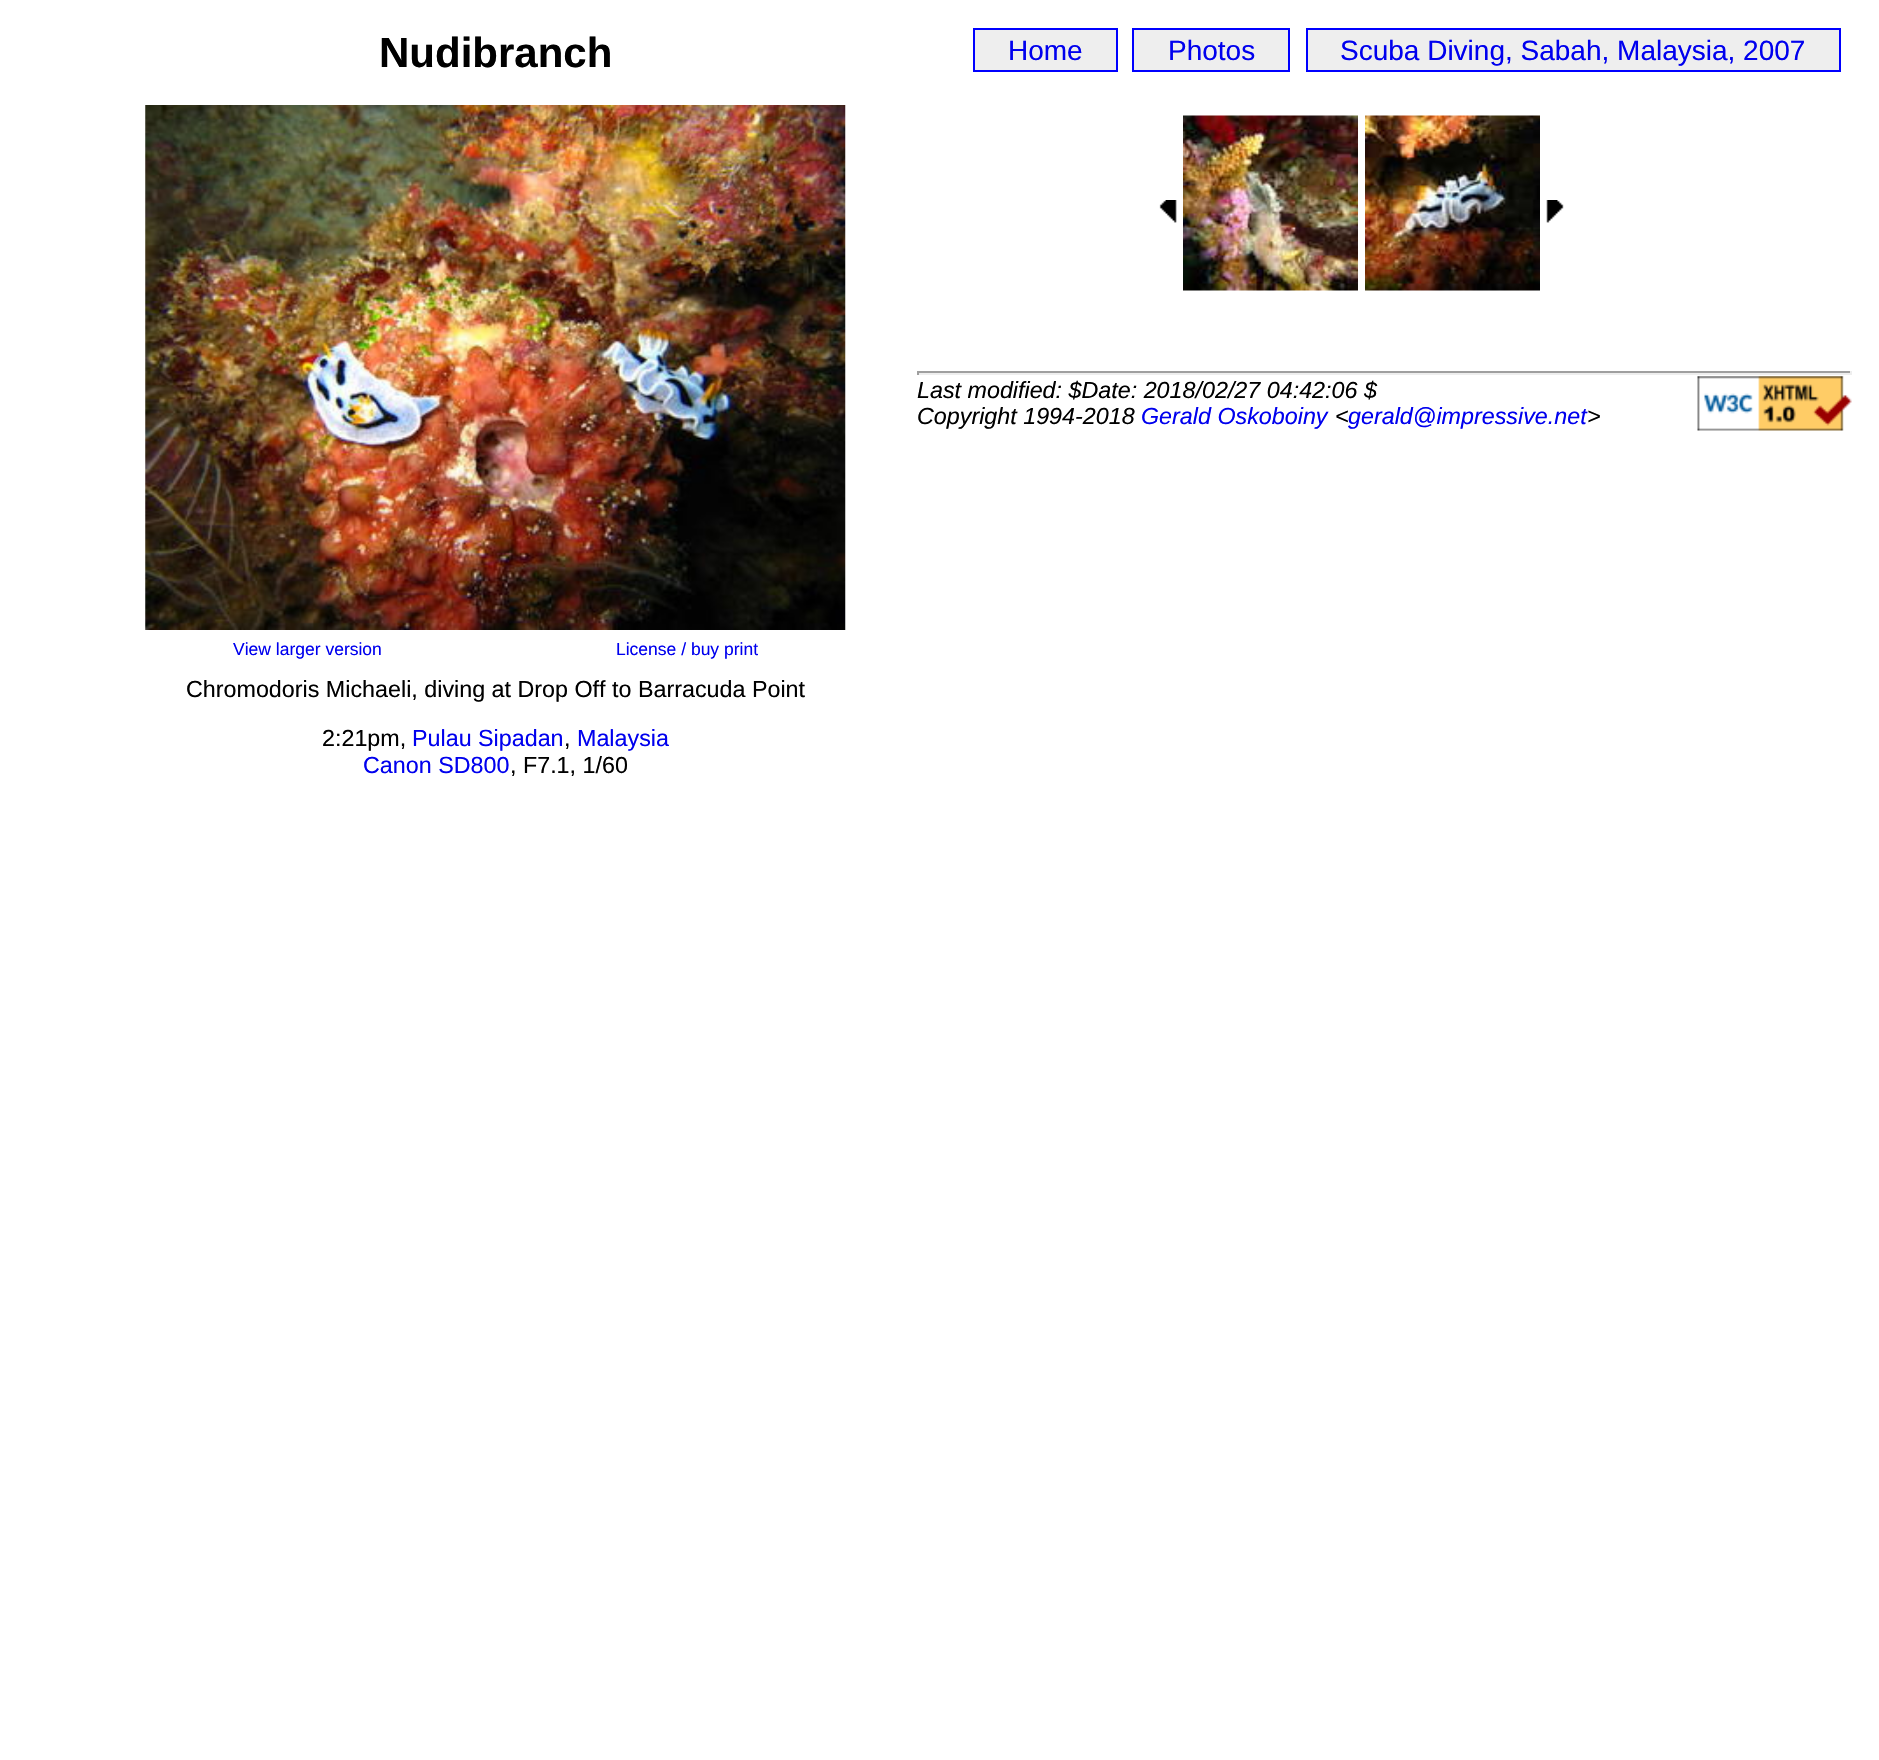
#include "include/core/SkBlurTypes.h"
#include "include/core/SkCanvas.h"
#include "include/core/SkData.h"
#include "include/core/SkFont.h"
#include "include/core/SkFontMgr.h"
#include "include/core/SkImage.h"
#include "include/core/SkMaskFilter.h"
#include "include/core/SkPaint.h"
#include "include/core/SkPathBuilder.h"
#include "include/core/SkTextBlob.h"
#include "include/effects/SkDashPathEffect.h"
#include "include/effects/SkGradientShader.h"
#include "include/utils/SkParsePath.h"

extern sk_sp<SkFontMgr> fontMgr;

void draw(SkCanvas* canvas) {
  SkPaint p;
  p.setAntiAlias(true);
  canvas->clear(SK_ColorWHITE);
  canvas->drawImageRect(SkImages::DeferredFromEncodedData(SkData::MakeFromFileName("images/1.png")), SkRect::MakeLTRB(145, 105, 846, 630), SkSamplingOptions());
  p.setColor(SkColorSetRGB(238, 238, 238));
  canvas->drawRect(SkRect::MakeLTRB(974, 29, 1117, 71), p);
  p.setStyle(SkPaint::kStroke_Style);
  p.setStrokeWidth(2);
  p.setColor(SkColorSetRGB(0, 0, 255));
  canvas->drawRect(SkRect::MakeLTRB(974, 29, 1117, 71), p);
  p.setStyle(SkPaint::kFill_Style);
  p.setColor(SkColorSetRGB(238, 238, 238));
  canvas->drawRect(SkRect::MakeLTRB(1133, 29, 1289, 71), p);
  p.setStyle(SkPaint::kStroke_Style);
  p.setColor(SkColorSetRGB(0, 0, 255));
  canvas->drawRect(SkRect::MakeLTRB(1133, 29, 1289, 71), p);
  p.setStyle(SkPaint::kFill_Style);
  p.setColor(SkColorSetRGB(238, 238, 238));
  canvas->drawRect(SkRect::MakeLTRB(1307, 29, 1840, 71), p);
  p.setStyle(SkPaint::kStroke_Style);
  p.setColor(SkColorSetRGB(0, 0, 255));
  canvas->drawRect(SkRect::MakeLTRB(1307, 29, 1840, 71), p);
  canvas->drawImageRect(SkImages::DeferredFromEncodedData(SkData::MakeFromFileName("images/2.png")), SkRect::MakeLTRB(1159, 200, 1177, 223), SkSamplingOptions());
  canvas->drawImageRect(SkImages::DeferredFromEncodedData(SkData::MakeFromFileName("images/3.png")), SkRect::MakeLTRB(1183, 115, 1358, 291), SkSamplingOptions());
  canvas->drawImageRect(SkImages::DeferredFromEncodedData(SkData::MakeFromFileName("images/4.png")), SkRect::MakeLTRB(1365, 115, 1540, 291), SkSamplingOptions());
  canvas->drawImageRect(SkImages::DeferredFromEncodedData(SkData::MakeFromFileName("images/5.png")), SkRect::MakeLTRB(1546, 200, 1564, 223), SkSamplingOptions());
  p.setStyle(SkPaint::kFill_Style);
  p.setColor(SkColorSetRGB(159, 159, 159));
  canvas->drawRect(SkRect::MakeLTRB(917, 371, 1852, 373), p);
  p.setColor(SkColorSetRGB(238, 238, 238));
  canvas->drawRect(SkRect::MakeLTRB(1850, 371, 1852, 375), p);
  canvas->drawRect(SkRect::MakeLTRB(917, 373, 1852, 375), p);
  p.setColor(SkColorSetRGB(159, 159, 159));
  canvas->drawRect(SkRect::MakeLTRB(917, 371, 919, 375), p);
  canvas->drawImageRect(SkImages::DeferredFromEncodedData(SkData::MakeFromFileName("images/6.png")), SkRect::MakeLTRB(1697, 376, 1852, 431), SkSamplingOptions());
  SkFont font1(fontMgr->matchFamilyStyle("Liberation Sans", SkFontStyle::Bold()), 42);
  font1.setSubpixel(true);
  p.setColor(SK_ColorBLACK);
  canvas->drawString("Nudibranch", 379, 67, font1, p);
  SkFont font2(fontMgr->matchFamilyStyle("Liberation Sans", SkFontStyle::Normal()), 17.5f);
  font2.setSubpixel(true);
  p.setColor(SkColorSetRGB(0, 0, 238));
  canvas->drawString("View larger version", 233, 655, font2, p);
  canvas->drawString("License / buy print", 616, 655, font2, p);
  SkFont font3(fontMgr->matchFamilyStyle("Liberation Sans", SkFontStyle::Normal()), 23.3f);
  font3.setSubpixel(true);
  p.setColor(SK_ColorBLACK);
  canvas->drawString("Chromodoris Michaeli, diving at Drop Off to Barracuda Point", 186, 697, font3, p);
  canvas->drawString("2:21pm,", 322, 746, font3, p);
  p.setColor(SkColorSetRGB(0, 0, 238));
  canvas->drawString("Pulau Sipadan", 412, 746, font3, p);
  p.setColor(SK_ColorBLACK);
  canvas->drawString(",", 564, 746, font3, p);
  p.setColor(SkColorSetRGB(0, 0, 238));
  canvas->drawString("Malaysia", 577, 746, font3, p);
  canvas->drawString("Canon SD800", 363, 773, font3, p);
  p.setColor(SK_ColorBLACK);
  canvas->drawString(", F7.1, 1/60", 510, 773, font3, p);
  SkFont font4(fontMgr->matchFamilyStyle("Liberation Sans", SkFontStyle::Normal()), 28);
  font4.setSubpixel(true);
  p.setColor(SkColorSetRGB(0, 0, 238));
  canvas->drawString("Home", 1008, 60, font4, p);
  canvas->drawString("Photos", 1168, 60, font4, p);
  canvas->drawString("Scuba Diving, Sabah, Malaysia, 2007", 1340, 60, font4, p);
  SkFont font5(fontMgr->matchFamilyStyle("Liberation Sans", SkFontStyle::Italic()), 23.3f);
  font5.setSubpixel(true);
  p.setColor(SK_ColorBLACK);
  canvas->drawString("Last modified: $Date: 2018/02/27 04:42:06 $", 917, 398, font5, p);
  canvas->drawString("Copyright 1994-2018", 917, 424, font5, p);
  p.setColor(SkColorSetRGB(0, 0, 238));
  canvas->drawString("Gerald Oskoboiny", 1141, 424, font5, p);
  p.setColor(SK_ColorBLACK);
  canvas->drawString("<", 1335, 424, font5, p);
  p.setColor(SkColorSetRGB(0, 0, 238));
  canvas->drawString("gerald@impressive.net", 1348, 424, font5, p);
  p.setColor(SK_ColorBLACK);
  canvas->drawString(">", 1587, 424, font5, p);
}
